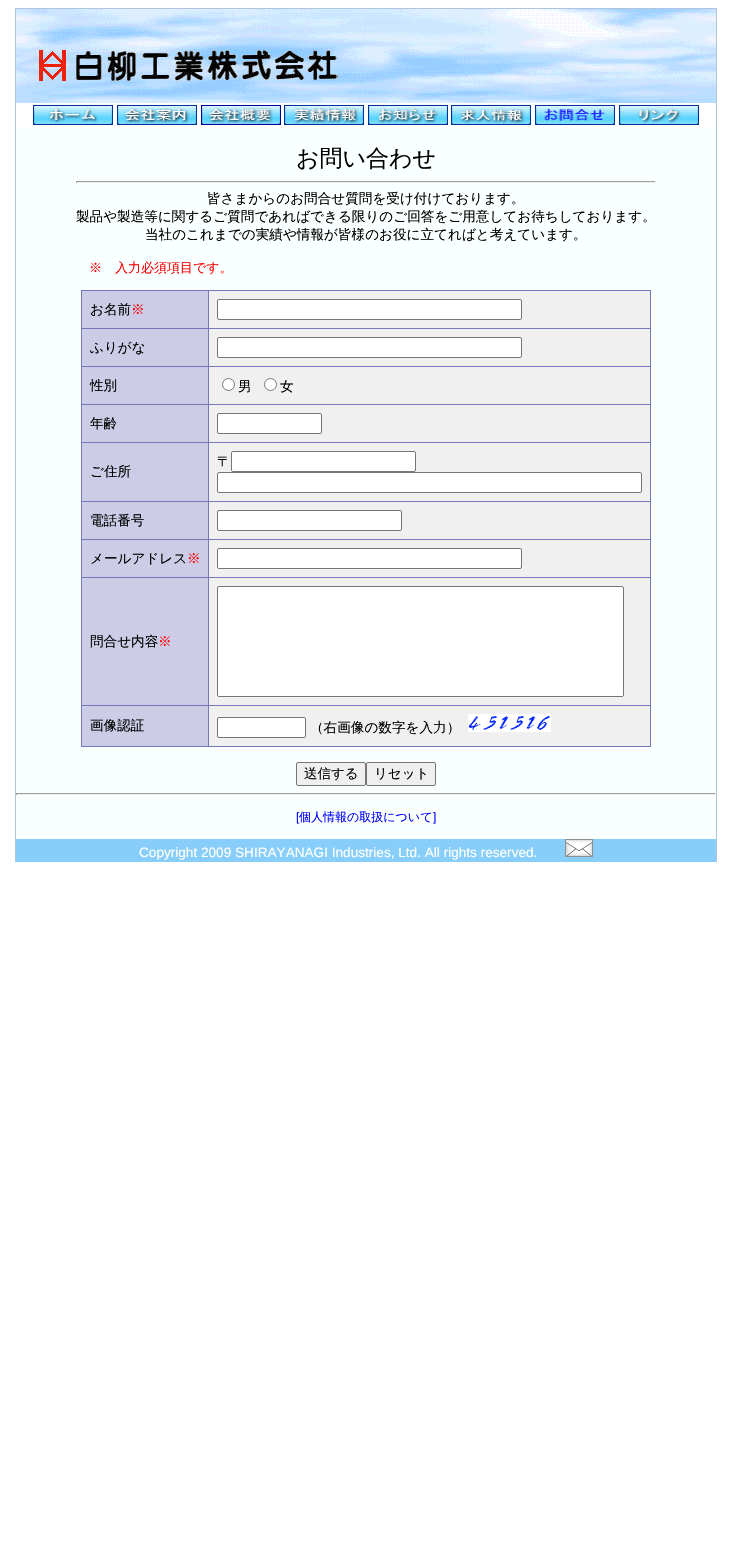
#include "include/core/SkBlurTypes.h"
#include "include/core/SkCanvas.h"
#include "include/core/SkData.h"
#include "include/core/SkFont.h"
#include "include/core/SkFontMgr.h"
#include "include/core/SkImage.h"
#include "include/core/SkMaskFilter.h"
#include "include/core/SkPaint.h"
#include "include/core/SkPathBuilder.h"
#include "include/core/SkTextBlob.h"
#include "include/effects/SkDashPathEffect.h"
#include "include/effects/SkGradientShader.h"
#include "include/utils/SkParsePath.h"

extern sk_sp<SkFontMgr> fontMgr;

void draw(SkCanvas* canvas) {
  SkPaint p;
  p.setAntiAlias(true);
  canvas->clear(SK_ColorWHITE);
  p.setColor(SkColorSetRGB(176, 196, 222));
  canvas->drawRect(SkRect::MakeLTRB(15, 8, 717, 9), p);
  canvas->drawRect(SkRect::MakeLTRB(716, 8, 717, 862), p);
  canvas->drawRect(SkRect::MakeLTRB(15, 8, 16, 862), p);
  canvas->drawImageRect(SkImages::DeferredFromEncodedData(SkData::MakeFromFileName("images/1.png")), SkRect::MakeLTRB(16, 9, 716, 103), SkSamplingOptions());
  canvas->drawImageRect(SkImages::DeferredFromEncodedData(SkData::MakeFromFileName("images/2.png")), SkRect::MakeLTRB(33, 105, 113, 125), SkSamplingOptions());
  canvas->drawImageRect(SkImages::DeferredFromEncodedData(SkData::MakeFromFileName("images/3.png")), SkRect::MakeLTRB(117, 105, 197, 125), SkSamplingOptions());
  canvas->drawImageRect(SkImages::DeferredFromEncodedData(SkData::MakeFromFileName("images/4.png")), SkRect::MakeLTRB(201, 105, 281, 125), SkSamplingOptions());
  canvas->drawImageRect(SkImages::DeferredFromEncodedData(SkData::MakeFromFileName("images/5.png")), SkRect::MakeLTRB(284, 105, 364, 125), SkSamplingOptions());
  canvas->drawImageRect(SkImages::DeferredFromEncodedData(SkData::MakeFromFileName("images/6.png")), SkRect::MakeLTRB(368, 105, 448, 125), SkSamplingOptions());
  canvas->drawImageRect(SkImages::DeferredFromEncodedData(SkData::MakeFromFileName("images/7.png")), SkRect::MakeLTRB(451, 105, 531, 125), SkSamplingOptions());
  canvas->drawImageRect(SkImages::DeferredFromEncodedData(SkData::MakeFromFileName("images/8.png")), SkRect::MakeLTRB(535, 105, 615, 125), SkSamplingOptions());
  canvas->drawImageRect(SkImages::DeferredFromEncodedData(SkData::MakeFromFileName("images/9.png")), SkRect::MakeLTRB(619, 105, 699, 125), SkSamplingOptions());
  p.setColor(SkColorSetRGB(250, 255, 255));
  canvas->drawRect(SkRect::MakeLTRB(16, 128, 716, 839), p);
  p.setColor(SkColorSetRGB(159, 159, 159));
  canvas->drawRect(SkRect::MakeLTRB(76, 181, 656, 182), p);
  p.setColor(SkColorSetRGB(238, 238, 238));
  canvas->drawRect(SkRect::MakeLTRB(655, 181, 656, 183), p);
  canvas->drawRect(SkRect::MakeLTRB(76, 182, 656, 183), p);
  p.setColor(SkColorSetRGB(159, 159, 159));
  canvas->drawRect(SkRect::MakeLTRB(76, 181, 77, 183), p);
  p.setColor(SkColorSetRGB(119, 119, 187));
  canvas->drawRect(SkRect::MakeLTRB(81, 290, 651, 291), p);
  canvas->drawRect(SkRect::MakeLTRB(650, 290, 651, 747), p);
  canvas->drawRect(SkRect::MakeLTRB(81, 746, 651, 747), p);
  canvas->drawRect(SkRect::MakeLTRB(81, 290, 82, 747), p);
  p.setColor(SkColorSetRGB(204, 204, 230));
  canvas->drawRect(SkRect::MakeLTRB(82, 291, 208, 328), p);
  p.setColor(SkColorSetRGB(240, 240, 240));
  canvas->drawRect(SkRect::MakeLTRB(209, 291, 650, 328), p);
  p.setColor(SkColorSetRGB(119, 119, 187));
  canvas->drawRect(SkRect::MakeLTRB(208, 328, 651, 329), p);
  canvas->drawRect(SkRect::MakeLTRB(208, 366, 651, 367), p);
  canvas->drawRect(SkRect::MakeLTRB(208, 404, 651, 405), p);
  canvas->drawRect(SkRect::MakeLTRB(208, 442, 651, 443), p);
  canvas->drawRect(SkRect::MakeLTRB(208, 501, 651, 502), p);
  canvas->drawRect(SkRect::MakeLTRB(208, 539, 651, 540), p);
  canvas->drawRect(SkRect::MakeLTRB(208, 577, 651, 578), p);
  canvas->drawRect(SkRect::MakeLTRB(208, 705, 651, 706), p);
  canvas->drawRect(SkRect::MakeLTRB(208, 705, 209, 747), p);
  canvas->drawRect(SkRect::MakeLTRB(81, 705, 209, 706), p);
  canvas->drawRect(SkRect::MakeLTRB(208, 577, 209, 706), p);
  canvas->drawRect(SkRect::MakeLTRB(81, 577, 209, 578), p);
  canvas->drawRect(SkRect::MakeLTRB(208, 539, 209, 578), p);
  canvas->drawRect(SkRect::MakeLTRB(81, 539, 209, 540), p);
  canvas->drawRect(SkRect::MakeLTRB(208, 501, 209, 540), p);
  canvas->drawRect(SkRect::MakeLTRB(81, 501, 209, 502), p);
  canvas->drawRect(SkRect::MakeLTRB(208, 442, 209, 502), p);
  canvas->drawRect(SkRect::MakeLTRB(81, 442, 209, 443), p);
  canvas->drawRect(SkRect::MakeLTRB(208, 404, 209, 443), p);
  canvas->drawRect(SkRect::MakeLTRB(81, 404, 209, 405), p);
  canvas->drawRect(SkRect::MakeLTRB(208, 366, 209, 405), p);
  canvas->drawRect(SkRect::MakeLTRB(81, 366, 209, 367), p);
  canvas->drawRect(SkRect::MakeLTRB(208, 328, 209, 367), p);
  canvas->drawRect(SkRect::MakeLTRB(81, 328, 209, 329), p);
  canvas->drawRect(SkRect::MakeLTRB(208, 290, 209, 329), p);
  p.setColor(SK_ColorWHITE);
  canvas->drawRoundRect(SkRect::MakeLTRB(217.5f, 299.5f, 521.5f, 319.5f), 1.5f, 1.5f, p);
  p.setStyle(SkPaint::kStroke_Style);
  p.setStrokeWidth(1);
  p.setColor(SkColorSetRGB(118, 118, 118));
  canvas->drawRoundRect(SkRect::MakeLTRB(217.5f, 299.5f, 521.5f, 319.5f), 1.5f, 1.5f, p);
  p.setStyle(SkPaint::kFill_Style);
  p.setColor(SkColorSetRGB(204, 204, 230));
  canvas->drawRect(SkRect::MakeLTRB(82, 329, 208, 366), p);
  p.setColor(SkColorSetRGB(240, 240, 240));
  canvas->drawRect(SkRect::MakeLTRB(209, 329, 650, 366), p);
  p.setColor(SK_ColorWHITE);
  canvas->drawRoundRect(SkRect::MakeLTRB(217.5f, 337.5f, 521.5f, 357.5f), 1.5f, 1.5f, p);
  p.setStyle(SkPaint::kStroke_Style);
  p.setColor(SkColorSetRGB(118, 118, 118));
  canvas->drawRoundRect(SkRect::MakeLTRB(217.5f, 337.5f, 521.5f, 357.5f), 1.5f, 1.5f, p);
  p.setStyle(SkPaint::kFill_Style);
  p.setColor(SkColorSetRGB(204, 204, 230));
  canvas->drawRect(SkRect::MakeLTRB(82, 367, 208, 404), p);
  p.setColor(SkColorSetRGB(240, 240, 240));
  canvas->drawRect(SkRect::MakeLTRB(209, 367, 650, 404), p);
  p.setColor(SK_ColorWHITE);
  canvas->drawCircle(228.5f, 384.5f, 6, p);
  p.setStyle(SkPaint::kStroke_Style);
  p.setColor(SkColorSetRGB(118, 118, 118));
  canvas->drawCircle(228.5f, 384.5f, 6, p);
  p.setStyle(SkPaint::kFill_Style);
  p.setColor(SK_ColorWHITE);
  canvas->drawCircle(270.5f, 384.5f, 6, p);
  p.setStyle(SkPaint::kStroke_Style);
  p.setColor(SkColorSetRGB(118, 118, 118));
  canvas->drawCircle(270.5f, 384.5f, 6, p);
  p.setStyle(SkPaint::kFill_Style);
  p.setColor(SkColorSetRGB(204, 204, 230));
  canvas->drawRect(SkRect::MakeLTRB(82, 405, 208, 442), p);
  p.setColor(SkColorSetRGB(240, 240, 240));
  canvas->drawRect(SkRect::MakeLTRB(209, 405, 650, 442), p);
  p.setColor(SK_ColorWHITE);
  canvas->drawRoundRect(SkRect::MakeLTRB(217.5f, 413.5f, 321.5f, 433.5f), 1.5f, 1.5f, p);
  p.setStyle(SkPaint::kStroke_Style);
  p.setColor(SkColorSetRGB(118, 118, 118));
  canvas->drawRoundRect(SkRect::MakeLTRB(217.5f, 413.5f, 321.5f, 433.5f), 1.5f, 1.5f, p);
  p.setStyle(SkPaint::kFill_Style);
  p.setColor(SkColorSetRGB(240, 240, 240));
  canvas->drawRect(SkRect::MakeLTRB(209, 443, 650, 501), p);
  p.setColor(SK_ColorWHITE);
  canvas->drawRoundRect(SkRect::MakeLTRB(231.5f, 451.5f, 415.5f, 471.5f), 1.5f, 1.5f, p);
  p.setStyle(SkPaint::kStroke_Style);
  p.setColor(SkColorSetRGB(118, 118, 118));
  canvas->drawRoundRect(SkRect::MakeLTRB(231.5f, 451.5f, 415.5f, 471.5f), 1.5f, 1.5f, p);
  p.setStyle(SkPaint::kFill_Style);
  p.setColor(SK_ColorWHITE);
  canvas->drawRoundRect(SkRect::MakeLTRB(217.5f, 472.5f, 641.5f, 492.5f), 1.5f, 1.5f, p);
  p.setStyle(SkPaint::kStroke_Style);
  p.setColor(SkColorSetRGB(118, 118, 118));
  canvas->drawRoundRect(SkRect::MakeLTRB(217.5f, 472.5f, 641.5f, 492.5f), 1.5f, 1.5f, p);
  p.setStyle(SkPaint::kFill_Style);
  p.setColor(SkColorSetRGB(204, 204, 230));
  canvas->drawRect(SkRect::MakeLTRB(82, 443, 208, 501), p);
  canvas->drawRect(SkRect::MakeLTRB(82, 502, 208, 539), p);
  p.setColor(SkColorSetRGB(240, 240, 240));
  canvas->drawRect(SkRect::MakeLTRB(209, 502, 650, 539), p);
  p.setColor(SK_ColorWHITE);
  canvas->drawRoundRect(SkRect::MakeLTRB(217.5f, 510.5f, 401.5f, 530.5f), 1.5f, 1.5f, p);
  p.setStyle(SkPaint::kStroke_Style);
  p.setColor(SkColorSetRGB(118, 118, 118));
  canvas->drawRoundRect(SkRect::MakeLTRB(217.5f, 510.5f, 401.5f, 530.5f), 1.5f, 1.5f, p);
  p.setStyle(SkPaint::kFill_Style);
  p.setColor(SkColorSetRGB(204, 204, 230));
  canvas->drawRect(SkRect::MakeLTRB(82, 540, 208, 577), p);
  p.setColor(SkColorSetRGB(240, 240, 240));
  canvas->drawRect(SkRect::MakeLTRB(209, 540, 650, 577), p);
  p.setColor(SK_ColorWHITE);
  canvas->drawRoundRect(SkRect::MakeLTRB(217.5f, 548.5f, 521.5f, 568.5f), 1.5f, 1.5f, p);
  p.setStyle(SkPaint::kStroke_Style);
  p.setColor(SkColorSetRGB(118, 118, 118));
  canvas->drawRoundRect(SkRect::MakeLTRB(217.5f, 548.5f, 521.5f, 568.5f), 1.5f, 1.5f, p);
  p.setStyle(SkPaint::kFill_Style);
  p.setColor(SkColorSetRGB(204, 204, 230));
  canvas->drawRect(SkRect::MakeLTRB(82, 578, 208, 705), p);
  p.setColor(SkColorSetRGB(240, 240, 240));
  canvas->drawRect(SkRect::MakeLTRB(209, 578, 650, 705), p);
  p.setColor(SK_ColorWHITE);
  canvas->drawRoundRect(SkRect::MakeLTRB(217.5f, 586.5f, 623.5f, 696.5f), 1.5f, 1.5f, p);
  p.setStyle(SkPaint::kStroke_Style);
  p.setColor(SkColorSetRGB(118, 118, 118));
  canvas->drawRoundRect(SkRect::MakeLTRB(217.5f, 586.5f, 623.5f, 696.5f), 1.5f, 1.5f, p);
  p.setStyle(SkPaint::kFill_Style);
  p.setColor(SkColorSetRGB(204, 204, 230));
  canvas->drawRect(SkRect::MakeLTRB(82, 706, 208, 746), p);
  p.setColor(SkColorSetRGB(240, 240, 240));
  canvas->drawRect(SkRect::MakeLTRB(209, 706, 650, 746), p);
  p.setColor(SK_ColorWHITE);
  canvas->drawRoundRect(SkRect::MakeLTRB(217.5f, 717.5f, 305.5f, 737.5f), 1.5f, 1.5f, p);
  p.setStyle(SkPaint::kStroke_Style);
  p.setColor(SkColorSetRGB(118, 118, 118));
  canvas->drawRoundRect(SkRect::MakeLTRB(217.5f, 717.5f, 305.5f, 737.5f), 1.5f, 1.5f, p);
  canvas->drawImageRect(SkImages::DeferredFromEncodedData(SkData::MakeFromFileName("images/10.png")), SkRect::MakeLTRB(468, 714, 551, 732), SkSamplingOptions());
  p.setStyle(SkPaint::kFill_Style);
  p.setColor(SkColorSetRGB(239, 239, 239));
  canvas->drawRoundRect(SkRect::MakeLTRB(296.5f, 762.5f, 365.5f, 785.5f), 1.5f, 1.5f, p);
  p.setStyle(SkPaint::kStroke_Style);
  p.setColor(SkColorSetRGB(118, 118, 118));
  canvas->drawRoundRect(SkRect::MakeLTRB(296.5f, 762.5f, 365.5f, 785.5f), 1.5f, 1.5f, p);
  p.setStyle(SkPaint::kFill_Style);
  p.setColor(SkColorSetRGB(239, 239, 239));
  canvas->drawRoundRect(SkRect::MakeLTRB(366.5f, 762.5f, 435.5f, 785.5f), 1.5f, 1.5f, p);
  p.setStyle(SkPaint::kStroke_Style);
  p.setColor(SkColorSetRGB(118, 118, 118));
  canvas->drawRoundRect(SkRect::MakeLTRB(366.5f, 762.5f, 435.5f, 785.5f), 1.5f, 1.5f, p);
  p.setStyle(SkPaint::kFill_Style);
  p.setColor(SkColorSetRGB(159, 159, 159));
  canvas->drawRect(SkRect::MakeLTRB(16, 793, 716, 794), p);
  p.setColor(SkColorSetRGB(238, 238, 238));
  canvas->drawRect(SkRect::MakeLTRB(715, 793, 716, 795), p);
  canvas->drawRect(SkRect::MakeLTRB(16, 794, 716, 795), p);
  p.setColor(SkColorSetRGB(159, 159, 159));
  canvas->drawRect(SkRect::MakeLTRB(16, 793, 17, 795), p);
  p.setColor(SK_ColorWHITE);
  canvas->drawRect(SkRect::MakeLTRB(296, 822, 436, 823), p);
  p.setColor(SkColorSetRGB(135, 206, 250));
  canvas->drawRect(SkRect::MakeLTRB(16, 839, 716, 862), p);
  canvas->drawImageRect(SkImages::DeferredFromEncodedData(SkData::MakeFromFileName("images/11.png")), SkRect::MakeLTRB(565, 839, 593, 857), SkSamplingOptions());
  SkFont font1(fontMgr->matchFamilyStyle("WenQuanYi Zen Hei", SkFontStyle(500, SkFontStyle::kNormal_Width, SkFontStyle::kUpright_Slant)), 23);
  font1.setSubpixel(true);
  p.setColor(SK_ColorBLACK);
  canvas->drawString("お問い合わせ", 296, 166, font1, p);
  SkFont font2(fontMgr->matchFamilyStyle("WenQuanYi Zen Hei", SkFontStyle(500, SkFontStyle::kNormal_Width, SkFontStyle::kUpright_Slant)), 13.6f);
  font2.setSubpixel(true);
  canvas->drawString("皆さまからのお問合せ質問を受け付けております。", 207, 203, font2, p);
  canvas->drawString("製品や製造等に関するご質問であればできる限りのご回答をご用意してお待ちしております。", 76, 221, font2, p);
  canvas->drawString("当社のこれまでの実績や情報が皆様のお役に立てればと考えています。", 145, 239, font2, p);
  SkFont font3(fontMgr->matchFamilyStyle("WenQuanYi Zen Hei", SkFontStyle(500, SkFontStyle::kNormal_Width, SkFontStyle::kUpright_Slant)), 13);
  font3.setSubpixel(true);
  p.setColor(SkColorSetRGB(255, 0, 0));
  canvas->drawString("※　入力必須項目です。", 89, 272, font3, p);
  p.setColor(SK_ColorBLACK);
  canvas->drawString("お名前", 90, 314, font2, p);
  p.setColor(SkColorSetRGB(255, 0, 0));
  canvas->drawString("※", 131, 314, font2, p);
  p.setColor(SK_ColorBLACK);
  canvas->drawString("ふりがな", 90, 352, font2, p);
  canvas->drawString("性別", 90, 390, font2, p);
  canvas->drawString("男", 238, 391, font2, p);
  canvas->drawString("女", 280, 391, font2, p);
  canvas->drawString("年齢", 90, 428, font2, p);
  canvas->drawString("〒", 217, 466, font2, p);
  canvas->drawString("ご住所", 90, 476, font2, p);
  canvas->drawString("電話番号", 90, 525, font2, p);
  canvas->drawString("メールアドレス", 90, 563, font2, p);
  p.setColor(SkColorSetRGB(255, 0, 0));
  canvas->drawString("※", 187, 563, font2, p);
  p.setColor(SK_ColorBLACK);
  canvas->drawString("問合せ内容", 90, 646, font2, p);
  p.setColor(SkColorSetRGB(255, 0, 0));
  canvas->drawString("※", 158, 646, font2, p);
  p.setColor(SK_ColorBLACK);
  canvas->drawString("画像認証", 90, 730, font2, p);
  canvas->drawString("（右画像の数字を入力）", 310, 732, font2, p);
  SkFont font4(fontMgr->matchFamilyStyle("WenQuanYi Zen Hei", SkFontStyle(500, SkFontStyle::kNormal_Width, SkFontStyle::kUpright_Slant)), 13.5f);
  font4.setSubpixel(true);
  canvas->drawString("送信する", 304, 778, font4, p);
  canvas->drawString("リセット", 374, 778, font4, p);
  SkFont font5(fontMgr->matchFamilyStyle("Liberation Sans", SkFontStyle::Normal()), 12);
  font5.setSubpixel(true);
  p.setColor(SkColorSetRGB(0, 0, 255));
  canvas->drawString("[", 296, 821, font5, p);
  SkFont font6(fontMgr->matchFamilyStyle("WenQuanYi Zen Hei", SkFontStyle(500, SkFontStyle::kNormal_Width, SkFontStyle::kUpright_Slant)), 12);
  font6.setSubpixel(true);
  canvas->drawString("個人情報の取扱について", 299, 821, font6, p);
  canvas->drawString("]", 433, 821, font5, p);
  SkFont font7(fontMgr->matchFamilyStyle("Liberation Sans", SkFontStyle::Normal()), 13.6f);
  font7.setSubpixel(true);
  p.setColor(SK_ColorWHITE);
  canvas->drawString("Copyright 2009 SHIRAYANAGI Industries, Ltd. All rights reserved.", 139, 857, font7, p);
}
